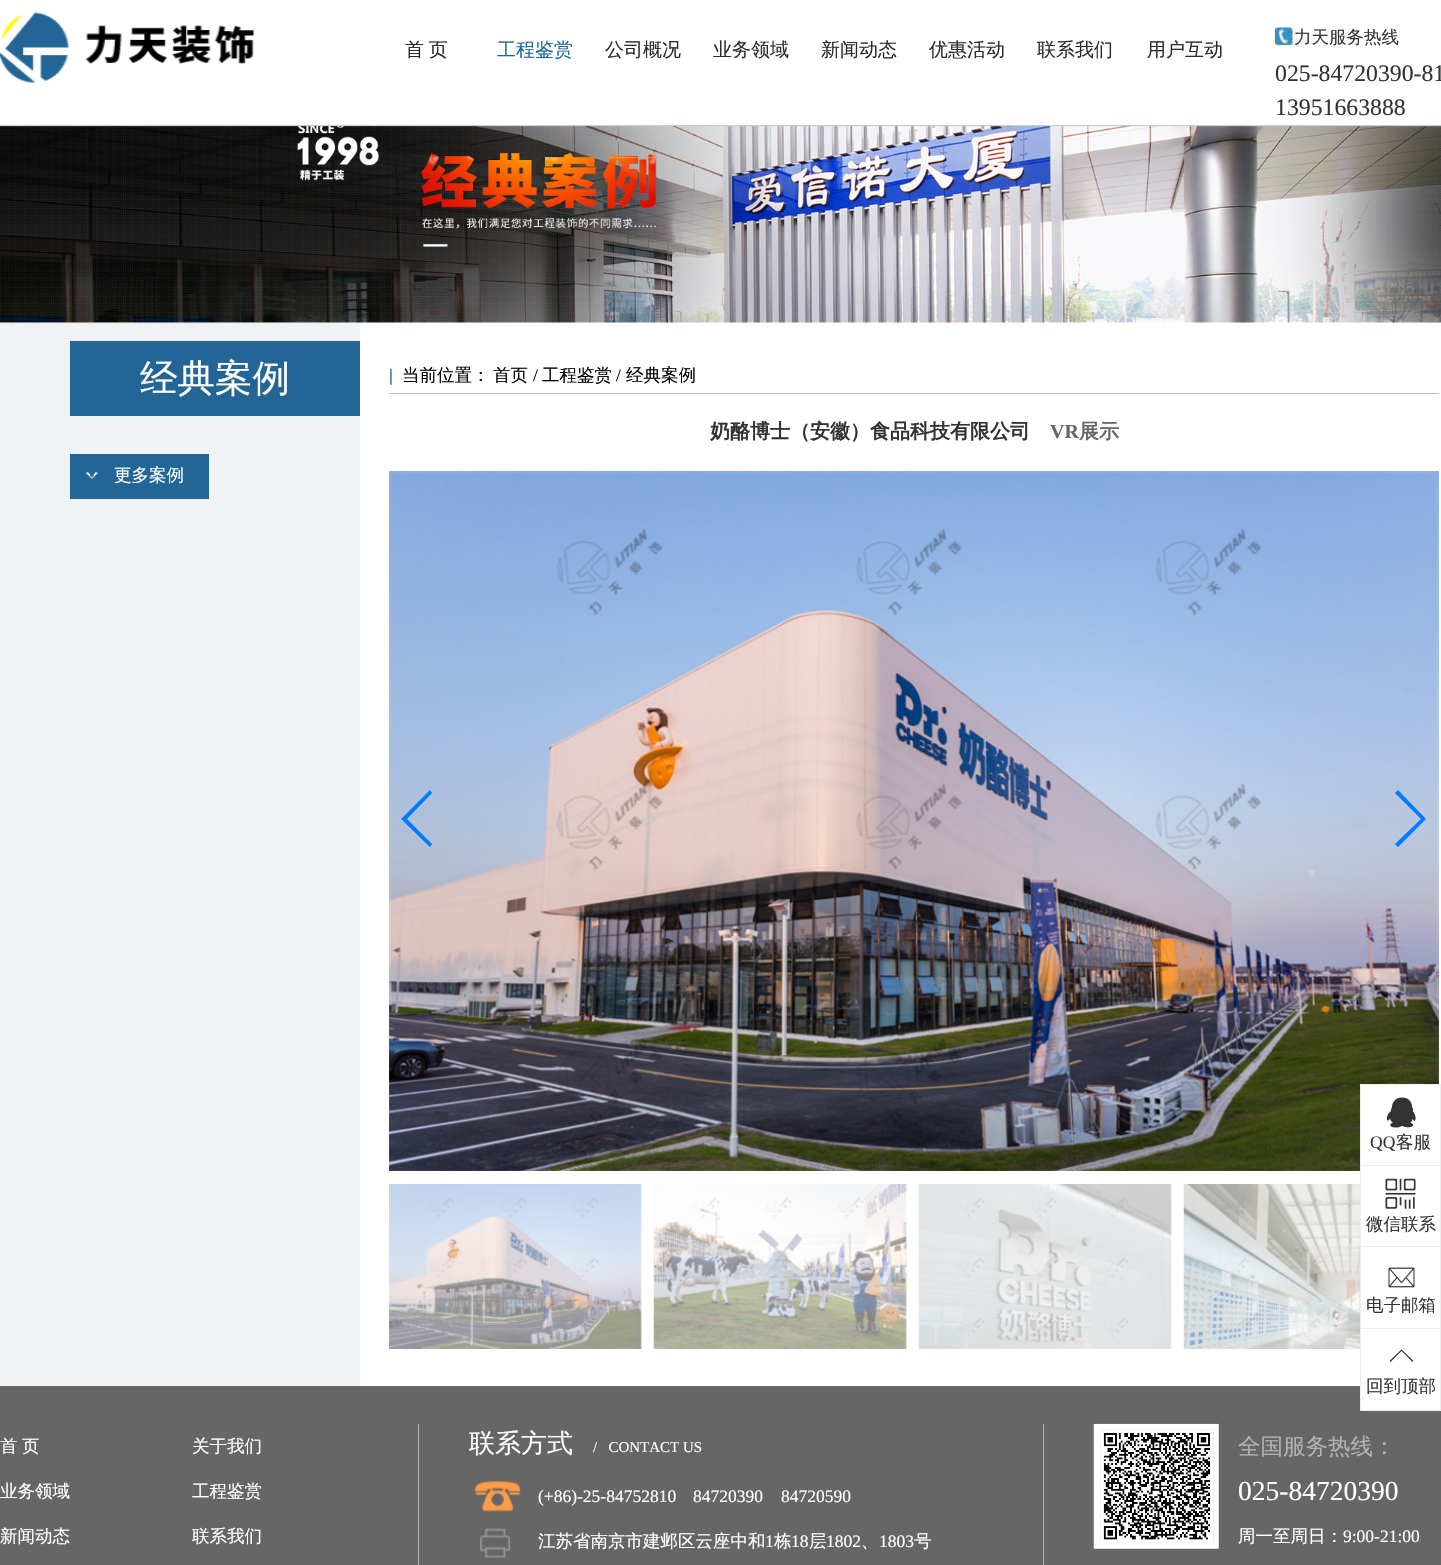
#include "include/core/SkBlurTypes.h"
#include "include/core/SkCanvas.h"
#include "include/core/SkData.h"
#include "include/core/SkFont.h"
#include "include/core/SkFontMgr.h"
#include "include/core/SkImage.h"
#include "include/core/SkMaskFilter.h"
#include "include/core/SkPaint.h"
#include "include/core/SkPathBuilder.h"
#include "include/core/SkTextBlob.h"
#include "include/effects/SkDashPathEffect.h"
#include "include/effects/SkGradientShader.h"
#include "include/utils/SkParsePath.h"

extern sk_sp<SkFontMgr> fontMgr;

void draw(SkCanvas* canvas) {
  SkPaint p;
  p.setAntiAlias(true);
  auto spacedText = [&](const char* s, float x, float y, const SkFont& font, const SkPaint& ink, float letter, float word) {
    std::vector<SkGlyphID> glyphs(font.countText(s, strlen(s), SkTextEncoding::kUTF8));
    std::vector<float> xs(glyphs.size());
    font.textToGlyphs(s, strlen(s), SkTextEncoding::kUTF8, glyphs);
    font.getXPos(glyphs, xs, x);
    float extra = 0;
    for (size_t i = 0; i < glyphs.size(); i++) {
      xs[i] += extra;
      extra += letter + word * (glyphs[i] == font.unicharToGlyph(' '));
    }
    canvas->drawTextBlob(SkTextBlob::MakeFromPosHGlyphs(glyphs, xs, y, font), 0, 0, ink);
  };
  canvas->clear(SK_ColorWHITE);
  canvas->drawImageRect(SkImages::DeferredFromEncodedData(SkData::MakeFromFileName("images/3.png")), SkRect::MakeLTRB(0, 125, 1441, 323), SkSamplingOptions());
  p.setColor(SkColorSetRGB(204, 204, 204));
  p.setMaskFilter(SkMaskFilter::MakeBlur(kNormal_SkBlurStyle, 0.5f));
  canvas->drawRect(SkRect::MakeLTRB(0, 1, 1441, 126), p);
  p.setMaskFilter(nullptr);
  p.setColor(SK_ColorWHITE);
  canvas->drawRect(SkRect::MakeLTRB(0, 0, 1441, 125), p);
  canvas->drawImageRect(SkImages::DeferredFromEncodedData(SkData::MakeFromFileName("images/1.png")), SkRect::MakeLTRB(0, 12, 254, 83), SkSamplingOptions());
  canvas->drawImageRect(SkImages::DeferredFromEncodedData(SkData::MakeFromFileName("images/2.png")), SkRect::MakeLTRB(1275, 27, 1293, 46), SkSamplingOptions());
  p.setColor(SkColorSetRGB(240, 243, 246));
  canvas->drawRect(SkRect::MakeLTRB(0, 323, 360, 1386), p);
  p.setColor(SkColorSetRGB(35, 102, 150));
  canvas->drawRect(SkRect::MakeLTRB(70, 341, 360, 416), p);
  canvas->drawRect(SkRect::MakeLTRB(70, 454, 209, 499), p);
  canvas->drawImageRect(SkImages::DeferredFromEncodedData(SkData::MakeFromFileName("images/4.png")), SkRect::MakeLTRB(86, 472, 98, 479), SkSamplingOptions());
  p.setColor(SkColorSetRGB(191, 191, 191));
  canvas->drawRect(SkRect::MakeLTRB(389, 393, 1439, 394), p);
  canvas->drawImageRect(SkImages::DeferredFromEncodedData(SkData::MakeFromFileName("images/5.png")), SkRect::MakeLTRB(389, 471, 1439, 1171), SkSamplingOptions());
  p.setColor(SkColorSetRGB(0, 122, 255));
  canvas->drawPath(SkPathBuilder().moveTo(401, 819).lineTo(430, 790).lineTo(432, 793).lineTo(407, 819).lineTo(432, 844).lineTo(430, 847).close().detach(), p);
  canvas->drawPath(SkPathBuilder().moveTo(1426, 819).lineTo(1398, 847).lineTo(1395, 844).lineTo(1421, 819).lineTo(1395, 793).lineTo(1398, 790).close().detach(), p);
  canvas->drawImageRect(SkImages::DeferredFromEncodedData(SkData::MakeFromFileName("images/6.png")), SkRect::MakeLTRB(389, 1184, 642, 1349), SkSamplingOptions());
  canvas->drawImageRect(SkImages::DeferredFromEncodedData(SkData::MakeFromFileName("images/7.png")), SkRect::MakeLTRB(653, 1184, 907, 1349), SkSamplingOptions());
  canvas->drawImageRect(SkImages::DeferredFromEncodedData(SkData::MakeFromFileName("images/8.png")), SkRect::MakeLTRB(918, 1184, 1172, 1349), SkSamplingOptions());
  canvas->drawImageRect(SkImages::DeferredFromEncodedData(SkData::MakeFromFileName("images/9.png")), SkRect::MakeLTRB(1183, 1184, 1360, 1349), SkSamplingOptions());
  p.setColor(SK_ColorWHITE);
  canvas->drawRect(SkRect::MakeLTRB(1361, 1085, 1439, 1165), p);
  p.setStyle(SkPaint::kStroke_Style);
  p.setStrokeWidth(1);
  p.setColor(SkColorSetRGB(238, 238, 238));
  canvas->drawRect(SkRect::MakeLTRB(1360.5f, 1084.5f, 1440.5f, 1167.5f), p);
  canvas->drawImageRect(SkImages::DeferredFromEncodedData(SkData::MakeFromFileName("images/10.png")), SkRect::MakeLTRB(1386, 1097, 1416, 1128), SkSamplingOptions());
  p.setStyle(SkPaint::kFill_Style);
  p.setColor(SK_ColorWHITE);
  canvas->drawRect(SkRect::MakeLTRB(1361, 1166, 1440, 1171), p);
  p.setStyle(SkPaint::kStroke_Style);
  p.setColor(SkColorSetRGB(238, 238, 238));
  canvas->drawRect(SkRect::MakeLTRB(1360.5f, 1165.5f, 1440.5f, 1248.5f), p);
  canvas->drawImageRect(SkImages::DeferredFromEncodedData(SkData::MakeFromFileName("images/11.png")), SkRect::MakeLTRB(1385, 1178, 1416, 1209), SkSamplingOptions());
  p.setStyle(SkPaint::kFill_Style);
  p.setColor(SK_ColorWHITE);
  canvas->drawRect(SkRect::MakeLTRB(1361, 1248, 1440, 1249), p);
  p.setStyle(SkPaint::kStroke_Style);
  p.setColor(SkColorSetRGB(238, 238, 238));
  canvas->drawRect(SkRect::MakeLTRB(1360.5f, 1246.5f, 1440.5f, 1329.5f), p);
  canvas->drawImageRect(SkImages::DeferredFromEncodedData(SkData::MakeFromFileName("images/12.png")), SkRect::MakeLTRB(1388, 1267, 1415, 1288), SkSamplingOptions());
  p.setStyle(SkPaint::kFill_Style);
  p.setColor(SkColorSetRGB(102, 102, 102));
  canvas->drawRect(SkRect::MakeLTRB(0, 1386, 1441, 1565), p);
  p.setColor(SK_ColorWHITE);
  canvas->drawRect(SkRect::MakeLTRB(1360.5f, 1328.5f, 1440.5f, 1410.5f), p);
  p.setStyle(SkPaint::kStroke_Style);
  p.setColor(SkColorSetRGB(238, 238, 238));
  canvas->drawRect(SkRect::MakeLTRB(1360.5f, 1328.5f, 1440.5f, 1410.5f), p);
  p.setStyle(SkPaint::kFill_Style);
  p.setColor(SkColorSetRGB(51, 51, 51));
  canvas->drawPath(SkPathBuilder().moveTo(1413.5f, 1361).lineTo(1401.5f, 1349.5f).lineTo(1389.5f, 1361).lineTo(1390.5f, 1362).lineTo(1401.5f, 1351).lineTo(1412.5f, 1362).close().detach(), p);
  p.setColor(SkColorSetRGB(179, 179, 179));
  canvas->drawRect(SkRect::MakeLTRB(418, 1424, 419, 1565), p);
  canvas->drawRect(SkRect::MakeLTRB(1043, 1424, 1044, 1565), p);
  canvas->drawImageRect(SkImages::DeferredFromEncodedData(SkData::MakeFromFileName("images/13.png")), SkRect::MakeLTRB(474, 1481, 521, 1558), SkSamplingOptions());
  canvas->drawImageRect(SkImages::DeferredFromEncodedData(SkData::MakeFromFileName("images/14.png")), SkRect::MakeLTRB(1093, 1423, 1219, 1549), SkSamplingOptions());
  SkFont font1(fontMgr->matchFamilyStyle("WenQuanYi Zen Hei", SkFontStyle(500, SkFontStyle::kNormal_Width, SkFontStyle::kUpright_Slant)), 19);
  font1.setSubpixel(true);
  p.setColor(SkColorSetRGB(44, 44, 44));
  spacedText("首 页", 405, 56, font1, p, 0, -1);
  p.setColor(SkColorSetRGB(35, 102, 150));
  canvas->drawString("工程鉴赏", 497, 56, font1, p);
  p.setColor(SkColorSetRGB(44, 44, 44));
  canvas->drawString("公司概况", 605, 56, font1, p);
  canvas->drawString("业务领域", 713, 56, font1, p);
  canvas->drawString("新闻动态", 821, 56, font1, p);
  canvas->drawString("优惠活动", 929, 56, font1, p);
  canvas->drawString("联系我们", 1037, 56, font1, p);
  canvas->drawString("用户互动", 1147, 56, font1, p);
  SkFont font2(fontMgr->matchFamilyStyle("WenQuanYi Zen Hei", SkFontStyle(500, SkFontStyle::kNormal_Width, SkFontStyle::kUpright_Slant)), 17.5f);
  font2.setSubpixel(true);
  p.setColor(SkColorSetRGB(51, 51, 51));
  canvas->drawString("力天服务热线", 1294, 43, font2, p);
  SkFont font3(fontMgr->matchFamilyStyle("Liberation Serif", SkFontStyle::Normal()), 23.75f);
  font3.setSubpixel(true);
  canvas->drawString("025-84720390-81", 1275, 81, font3, p);
  canvas->drawString("13951663888", 1275, 115, font3, p);
  SkFont font4(fontMgr->matchFamilyStyle("WenQuanYi Zen Hei", SkFontStyle(500, SkFontStyle::kNormal_Width, SkFontStyle::kUpright_Slant)), 37.5f);
  font4.setSubpixel(true);
  p.setColor(SK_ColorWHITE);
  canvas->drawString("经典案例", 140, 391, font4, p);
  canvas->drawString("更多案例", 114, 481, font2, p);
  SkFont font5(fontMgr->matchFamilyStyle("Liberation Serif", SkFontStyle::Bold()), 17.5f);
  font5.setSubpixel(true);
  p.setColor(SkColorSetRGB(35, 102, 150));
  canvas->drawString("|", 389, 381, font5, p);
  p.setColor(SK_ColorBLACK);
  canvas->drawString("当前位置：", 402, 381, font2, p);
  canvas->drawString("首页", 493, 381, font2, p);
  SkFont font6(fontMgr->matchFamilyStyle("Liberation Serif", SkFontStyle::Normal()), 17.5f);
  font6.setSubpixel(true);
  canvas->drawString("/", 533, 381, font6, p);
  canvas->drawString("工程鉴赏", 542, 381, font2, p);
  canvas->drawString("/", 616, 381, font6, p);
  canvas->drawString("经典案例", 626, 381, font2, p);
  SkFont font7(fontMgr->matchFamilyStyle("WenQuanYi Zen Hei", SkFontStyle::Bold()), 20);
  font7.setSubpixel(true);
  p.setColor(SkColorSetRGB(51, 51, 51));
  canvas->drawString("奶酪博士（安徽）食品科技有限公司", 710, 438, font7, p);
  SkFont font8(fontMgr->matchFamilyStyle("Liberation Serif", SkFontStyle::Bold()), 20);
  font8.setSubpixel(true);
  p.setColor(SkColorSetRGB(102, 102, 102));
  canvas->drawString("VR", 1050, 438, font8, p);
  canvas->drawString("展示", 1079, 438, font7, p);
  p.setColor(SkColorSetRGB(51, 51, 51));
  canvas->drawString("QQ", 1370, 1148, font6, p);
  canvas->drawString("客服", 1396, 1148, font2, p);
  canvas->drawString("微信联系", 1366, 1230, font2, p);
  canvas->drawString("电子邮箱", 1366, 1311, font2, p);
  canvas->drawString("回到顶部", 1366, 1392, font2, p);
  p.setColor(SK_ColorWHITE);
  canvas->drawString("首", 0, 1452, font2, p);
  canvas->drawString("页", 22, 1452, font2, p);
  canvas->drawString("关于我们", 192, 1452, font2, p);
  canvas->drawString("业务领域", 0, 1497, font2, p);
  canvas->drawString("工程鉴赏", 192, 1497, font2, p);
  canvas->drawString("新闻动态", 0, 1542, font2, p);
  canvas->drawString("联系我们", 192, 1542, font2, p);
  SkFont font9(fontMgr->matchFamilyStyle("WenQuanYi Zen Hei", SkFontStyle(500, SkFontStyle::kNormal_Width, SkFontStyle::kUpright_Slant)), 26);
  font9.setSubpixel(true);
  canvas->drawString("联系方式", 469, 1452, font9, p);
  SkFont font10(fontMgr->matchFamilyStyle("Liberation Serif", SkFontStyle::Normal()), 15);
  font10.setSubpixel(true);
  canvas->drawString("/   CONTACT US", 593, 1452, font10, p);
  canvas->drawString("(+86)-25-84752810", 538, 1502, font6, p);
  canvas->drawString("84720390", 693, 1502, font6, p);
  canvas->drawString("84720590", 781, 1502, font6, p);
  canvas->drawString("江苏省南京市建邺区云座中和", 538, 1547, font2, p);
  canvas->drawString("1", 765, 1547, font6, p);
  canvas->drawString("栋", 774, 1547, font2, p);
  canvas->drawString("18", 791, 1547, font6, p);
  canvas->drawString("层", 809, 1547, font2, p);
  canvas->drawString("1802", 826, 1547, font6, p);
  canvas->drawString("、", 861, 1547, font2, p);
  canvas->drawString("1803", 879, 1547, font6, p);
  canvas->drawString("号", 914, 1547, font2, p);
  SkFont font11(fontMgr->matchFamilyStyle("WenQuanYi Zen Hei", SkFontStyle(500, SkFontStyle::kNormal_Width, SkFontStyle::kUpright_Slant)), 22.5f);
  font11.setSubpixel(true);
  p.setColor(SkColorSetRGB(179, 179, 179));
  canvas->drawString("全国服务热线：", 1238, 1454, font11, p);
  SkFont font12(fontMgr->matchFamilyStyle("Liberation Serif", SkFontStyle::Normal()), 27.5f);
  font12.setSubpixel(true);
  p.setColor(SK_ColorWHITE);
  canvas->drawString("025-84720390", 1238, 1500, font12, p);
  canvas->drawString("周一至周日：", 1238, 1542, font2, p);
  canvas->drawString("9:00-21:00", 1343, 1542, font6, p);
}
